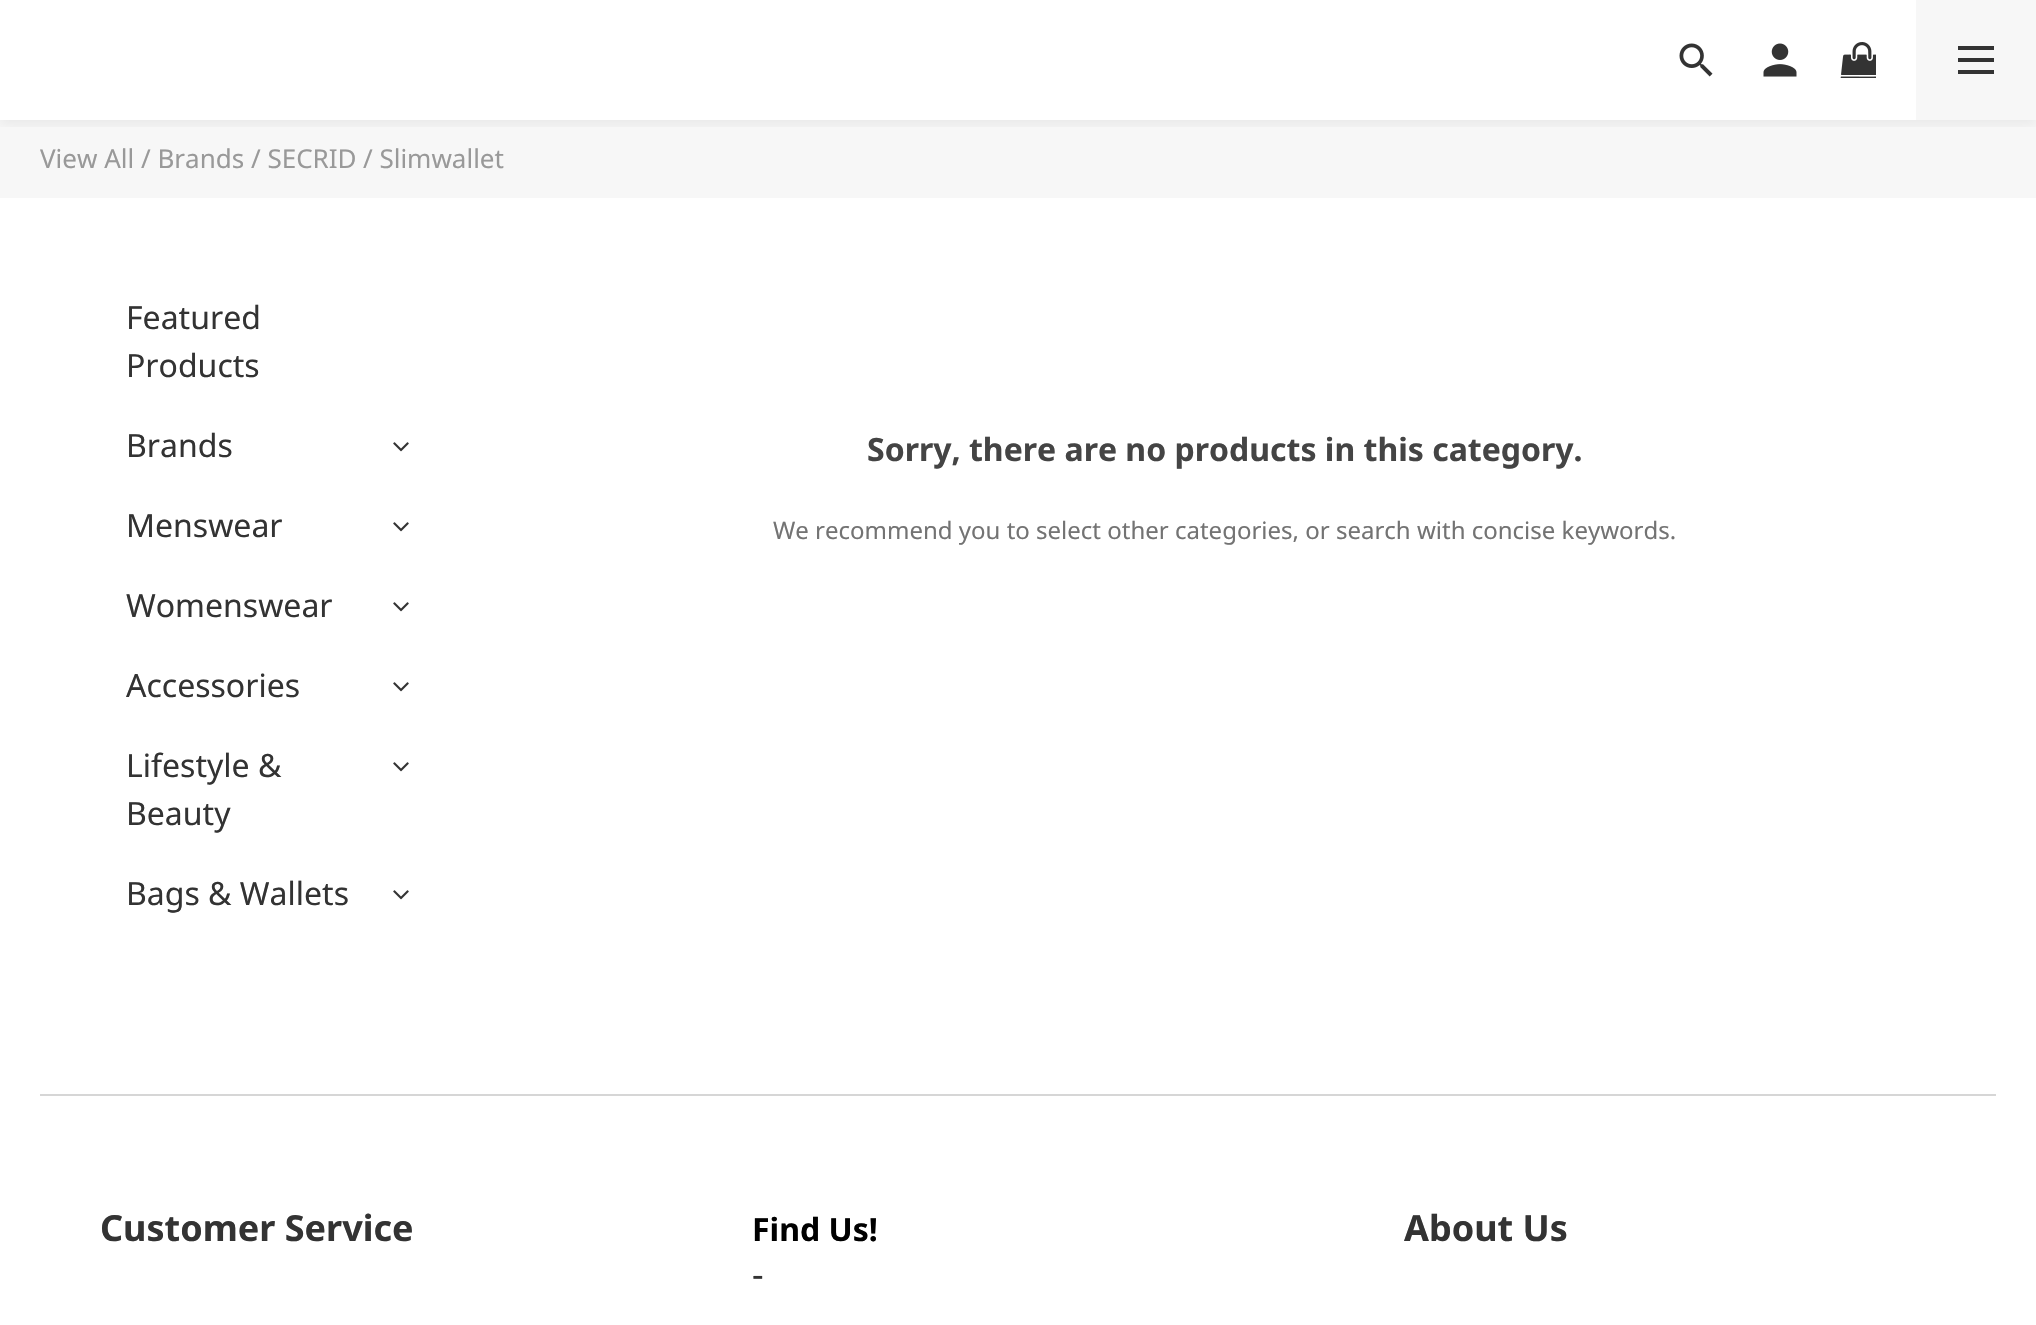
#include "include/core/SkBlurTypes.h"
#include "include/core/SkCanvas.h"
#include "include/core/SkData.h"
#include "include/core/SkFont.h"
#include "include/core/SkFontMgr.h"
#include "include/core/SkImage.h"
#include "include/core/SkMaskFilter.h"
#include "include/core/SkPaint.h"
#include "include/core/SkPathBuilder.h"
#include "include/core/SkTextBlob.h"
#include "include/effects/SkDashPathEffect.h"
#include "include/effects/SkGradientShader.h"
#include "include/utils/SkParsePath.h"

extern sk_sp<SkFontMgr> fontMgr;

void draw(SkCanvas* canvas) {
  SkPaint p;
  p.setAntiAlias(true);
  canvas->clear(SK_ColorWHITE);
  p.setColor(SkColorSetRGB(247, 247, 247));
  canvas->drawRect(SkRect::MakeLTRB(0, 120, 2036, 198), p);
  canvas->save();
  canvas->clipRect(SkRect::MakeLTRB(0, 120, 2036, 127));
  p.setColor(SkColorSetARGB(15, 0, 0, 0));
  p.setMaskFilter(SkMaskFilter::MakeBlur(kNormal_SkBlurStyle, 6));
  canvas->drawRect(SkRect::MakeLTRB(0, 4, 2036, 124), p);
  p.setMaskFilter(nullptr);
  canvas->restore();
  canvas->drawImageRect(SkImages::DeferredFromEncodedData(SkData::MakeFromFileName("images/1.png")), SkRect::MakeLTRB(1679, 43, 1713, 77), SkSamplingOptions());
  canvas->drawImageRect(SkImages::DeferredFromEncodedData(SkData::MakeFromFileName("images/2.png")), SkRect::MakeLTRB(1763, 43, 1797, 77), SkSamplingOptions());
  canvas->drawImageRect(SkImages::DeferredFromEncodedData(SkData::MakeFromFileName("images/3.png")), SkRect::MakeLTRB(1840, 42, 1876, 78), SkSamplingOptions());
  p.setColor(SkColorSetRGB(247, 247, 247));
  canvas->drawRect(SkRect::MakeLTRB(1916, 0, 2036, 120), p);
  p.setColor(SkColorSetRGB(51, 51, 51));
  canvas->drawRect(SkRect::MakeLTRB(1958, 58, 1994, 62), p);
  canvas->drawRect(SkRect::MakeLTRB(1958, 46, 1994, 50), p);
  canvas->drawRect(SkRect::MakeLTRB(1958, 70, 1994, 74), p);
  canvas->drawImageRect(SkImages::DeferredFromEncodedData(SkData::MakeFromFileName("images/4.png")), SkRect::MakeLTRB(393, 442, 409, 452), SkSamplingOptions());
  canvas->drawImageRect(SkImages::DeferredFromEncodedData(SkData::MakeFromFileName("images/4.png")), SkRect::MakeLTRB(393, 522, 409, 532), SkSamplingOptions());
  canvas->drawImageRect(SkImages::DeferredFromEncodedData(SkData::MakeFromFileName("images/4.png")), SkRect::MakeLTRB(393, 602, 409, 612), SkSamplingOptions());
  canvas->drawImageRect(SkImages::DeferredFromEncodedData(SkData::MakeFromFileName("images/4.png")), SkRect::MakeLTRB(393, 682, 409, 692), SkSamplingOptions());
  canvas->drawImageRect(SkImages::DeferredFromEncodedData(SkData::MakeFromFileName("images/4.png")), SkRect::MakeLTRB(393, 762, 409, 772), SkSamplingOptions());
  canvas->drawImageRect(SkImages::DeferredFromEncodedData(SkData::MakeFromFileName("images/4.png")), SkRect::MakeLTRB(393, 890, 409, 900), SkSamplingOptions());
  p.setColor(SkColorSetRGB(214, 214, 214));
  canvas->drawRect(SkRect::MakeLTRB(40, 1094, 1996, 1096), p);
  SkFont font1(fontMgr->matchFamilyStyle("Noto Sans", SkFontStyle::Normal()), 26);
  font1.setSubpixel(true);
  p.setColor(SkColorSetRGB(153, 153, 153));
  canvas->drawString("View All", 40, 168, font1, p);
  canvas->drawString("/ Brands", 141, 168, font1, p);
  canvas->drawString("/ SECRID", 251, 168, font1, p);
  canvas->drawString("/ Slimwallet", 363, 168, font1, p);
  SkFont font2(fontMgr->matchFamilyStyle("Noto Sans", SkFontStyle::Normal()), 32);
  font2.setSubpixel(true);
  p.setColor(SkColorSetRGB(51, 51, 51));
  canvas->drawString("Featured", 126, 329, font2, p);
  canvas->drawString("Products", 126, 377, font2, p);
  canvas->drawString("Brands", 126, 457, font2, p);
  canvas->drawString("Menswear", 126, 537, font2, p);
  canvas->drawString("Womenswear", 126, 617, font2, p);
  canvas->drawString("Accessories", 126, 697, font2, p);
  canvas->drawString("Lifestyle &", 126, 777, font2, p);
  canvas->drawString("Beauty", 126, 825, font2, p);
  canvas->drawString("Bags & Wallets", 126, 905, font2, p);
  SkFont font3(fontMgr->matchFamilyStyle("Noto Sans", SkFontStyle::Bold()), 32);
  font3.setSubpixel(true);
  p.setColor(SkColorSetRGB(68, 68, 68));
  canvas->drawString("Sorry, there are no products in this category.", 867, 461, font3, p);
  SkFont font4(fontMgr->matchFamilyStyle("Noto Sans", SkFontStyle::Normal()), 24);
  font4.setSubpixel(true);
  p.setColor(SkColorSetRGB(115, 115, 115));
  canvas->drawString("We recommend you to select other categories, or search with concise keywords.", 773, 539, font4, p);
  SkFont font5(fontMgr->matchFamilyStyle("Noto Sans", SkFontStyle::Bold()), 36);
  font5.setSubpixel(true);
  p.setColor(SkColorSetRGB(51, 51, 51));
  canvas->drawString("Customer Service", 100, 1241, font5, p);
  p.setColor(SK_ColorBLACK);
  canvas->drawString("Find Us!", 752, 1241, font3, p);
  SkFont font6(fontMgr->matchFamilyStyle("Noto Sans", SkFontStyle::Normal()), 36);
  font6.setSubpixel(true);
  p.setColor(SkColorSetRGB(51, 51, 51));
  canvas->drawString("-", 752, 1287, font6, p);
  canvas->drawString("About Us", 1404, 1241, font5, p);
}
